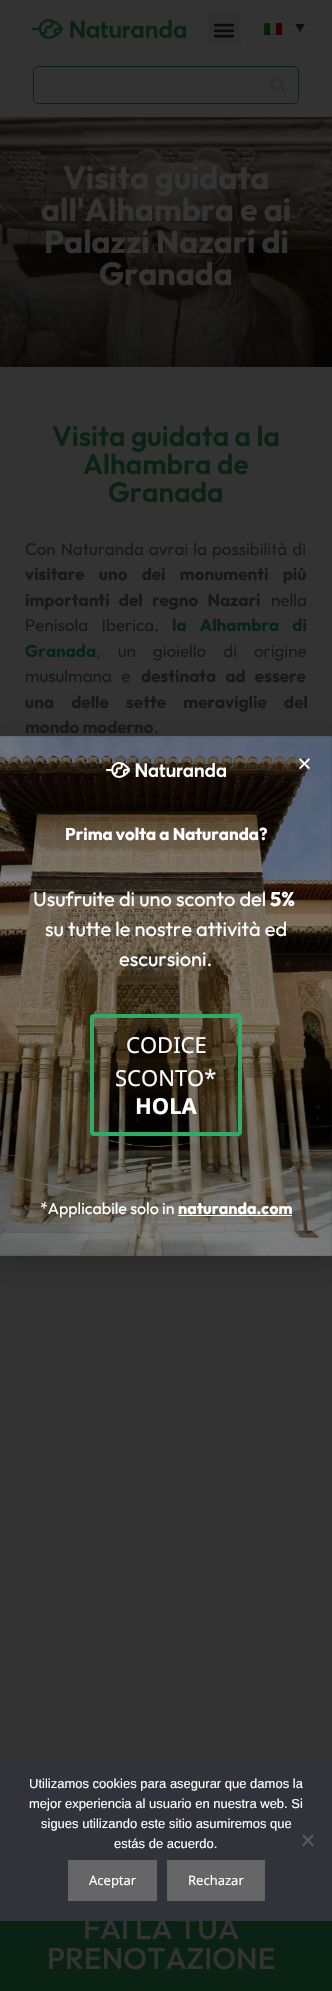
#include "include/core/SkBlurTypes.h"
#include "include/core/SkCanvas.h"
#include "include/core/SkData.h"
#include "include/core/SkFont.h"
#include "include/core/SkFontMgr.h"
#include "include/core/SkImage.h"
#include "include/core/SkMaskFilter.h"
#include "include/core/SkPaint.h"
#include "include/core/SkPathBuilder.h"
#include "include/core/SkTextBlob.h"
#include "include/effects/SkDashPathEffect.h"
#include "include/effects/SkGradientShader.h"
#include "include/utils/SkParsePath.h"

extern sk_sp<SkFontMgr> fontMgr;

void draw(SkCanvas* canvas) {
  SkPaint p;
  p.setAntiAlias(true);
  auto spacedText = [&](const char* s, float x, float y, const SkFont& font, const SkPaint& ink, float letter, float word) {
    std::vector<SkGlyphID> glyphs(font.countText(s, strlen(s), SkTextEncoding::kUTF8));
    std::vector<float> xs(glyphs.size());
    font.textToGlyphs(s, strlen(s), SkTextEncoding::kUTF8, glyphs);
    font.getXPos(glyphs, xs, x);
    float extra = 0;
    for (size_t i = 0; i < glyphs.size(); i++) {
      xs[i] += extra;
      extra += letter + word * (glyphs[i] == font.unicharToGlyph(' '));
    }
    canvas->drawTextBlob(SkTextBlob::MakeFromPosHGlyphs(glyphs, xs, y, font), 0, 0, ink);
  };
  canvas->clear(SkColorSetRGB(51, 51, 51));
  canvas->drawImageRect(SkImages::DeferredFromEncodedData(SkData::MakeFromFileName("images/1.png")), SkRect::MakeLTRB(32, 19, 186, 39), SkSamplingOptions());
  p.setColor(SkColorSetRGB(48, 48, 48));
  canvas->drawRoundRect(SkRect::MakeLTRB(208, 13, 241, 46), 3, 3, p);
  canvas->drawImageRect(SkImages::DeferredFromEncodedData(SkData::MakeFromFileName("images/2.png")), SkRect::MakeLTRB(213, 23, 235, 38), SkSamplingOptions());
  canvas->drawImageRect(SkImages::DeferredFromEncodedData(SkData::MakeFromFileName("images/3.png")), SkRect::MakeLTRB(264, 23, 282, 35), SkSamplingOptions());
  p.setColor(SkColorSetRGB(14, 14, 14));
  canvas->drawPath(SkPathBuilder().moveTo(295, 24).lineTo(305, 24).lineTo(300, 32).close().detach(), p);
  canvas->drawImageRect(SkImages::DeferredFromEncodedData(SkData::MakeFromFileName("images/4.png")), SkRect::MakeLTRB(271, 77, 286, 92), SkSamplingOptions());
  p.setStyle(SkPaint::kStroke_Style);
  p.setStrokeWidth(1);
  p.setColor(SkColorSetRGB(9, 34, 20));
  canvas->drawRoundRect(SkRect::MakeLTRB(33.5f, 66.5f, 298.5f, 103.5f), 4.5f, 4.5f, p);
  canvas->drawImageRect(SkImages::DeferredFromEncodedData(SkData::MakeFromFileName("images/5.png")), SkRect::MakeLTRB(0, 117, 332, 367), SkSamplingOptions());
  p.setStyle(SkPaint::kFill_Style);
  {
    const SkColor colors[] = {SkColorSetARGB(0, 0, 0, 0), SkColorSetARGB(128, 0, 0, 0)};
    const float stops[] = {0.5f, 1};
    const SkPoint ends[] = {{166, -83}, {166, 367}};
    p.setShader(SkGradientShader::MakeLinear(ends, colors, stops, 2, SkTileMode::kClamp));
    p.setAlpha(255);
  }
  canvas->drawRect(SkRect::MakeLTRB(0, 166, 332, 367), p);
  p.setShader(nullptr);
  p.setColor(SkColorSetRGB(9, 34, 20));
  canvas->drawRect(SkRect::MakeLTRB(0, 1921, 332, 1991), p);
  p.setColor(SkColorSetARGB(51, 0, 0, 0));
  p.setMaskFilter(SkMaskFilter::MakeBlur(kNormal_SkBlurStyle, 11.5f));
  canvas->drawRect(SkRect::MakeLTRB(-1, 741, 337, 1267), p);
  p.setMaskFilter(nullptr);
  canvas->drawImageRect(SkImages::DeferredFromEncodedData(SkData::MakeFromFileName("images/7.png")), SkRect::MakeLTRB(0, 736, 332, 1256), SkSamplingOptions());
  canvas->drawImageRect(SkImages::DeferredFromEncodedData(SkData::MakeFromFileName("images/6.png")), SkRect::MakeLTRB(299, 758, 310, 769), SkSamplingOptions());
  canvas->drawImageRect(SkImages::DeferredFromEncodedData(SkData::MakeFromFileName("images/8.png")), SkRect::MakeLTRB(106, 762, 226, 778), SkSamplingOptions());
  p.setStyle(SkPaint::kStroke_Style);
  p.setStrokeWidth(4);
  p.setColor(SkColorSetRGB(47, 172, 102));
  canvas->drawRoundRect(SkRect::MakeLTRB(92, 1016, 240, 1134), 2, 2, p);
  p.setStyle(SkPaint::kFill_Style);
  p.setColor(SK_ColorWHITE);
  canvas->drawRect(SkRect::MakeLTRB(178, 1215, 292, 1216), p);
  SkFont font1(fontMgr->matchFamilyStyle("Outfit", SkFontStyle::Bold()), 32);
  font1.setSubpixel(true);
  p.setColor(SkColorSetRGB(51, 51, 51));
  canvas->drawString("Visita guidata", 63, 189, font1, p);
  canvas->drawString("all'Alhambra e ai", 41, 221, font1, p);
  canvas->drawString("Palazzi Nazarí di", 44, 253, font1, p);
  canvas->drawString("Granada", 99, 285, font1, p);
  SkFont font2(fontMgr->matchFamilyStyle("Outfit", SkFontStyle(600, SkFontStyle::kNormal_Width, SkFontStyle::kUpright_Slant)), 28);
  font2.setSubpixel(true);
  p.setColor(SkColorSetRGB(9, 34, 20));
  canvas->drawString("Visita guidata a la", 52, 446, font2, p);
  canvas->drawString("Alhambra de", 83, 474, font2, p);
  canvas->drawString("Granada", 108, 502, font2, p);
  SkFont font3(fontMgr->matchFamilyStyle("Outfit", SkFontStyle::Normal()), 17);
  font3.setSubpixel(true);
  p.setColor(SkColorSetRGB(24, 24, 24));
  spacedText("Con Naturanda avrai la possibilità di", 25, 555, font3, p, 0, 1.5f);
  SkFont font4(fontMgr->matchFamilyStyle("Outfit", SkFontStyle::Bold()), 17);
  font4.setSubpixel(true);
  spacedText("visitare uno dei monumenti più", 25, 580, font4, p, 0, 11);
  spacedText("importanti del regno Nazarí", 25, 606, font4, p, 0, 6);
  canvas->drawString("nella", 271, 606, font3, p);
  spacedText("Penisola Iberica,", 25, 631, font3, p, 0, 10);
  p.setColor(SkColorSetRGB(9, 34, 20));
  spacedText("la Alhambra di", 172, 631, font4, p, 0, 10);
  canvas->drawString("Granada", 25, 657, font4, p);
  p.setColor(SkColorSetRGB(24, 24, 24));
  spacedText(", un gioiello di origine", 96, 657, font3, p, 0, 13.5f);
  spacedText("musulmana e", 25, 682, font3, p, 0, 6);
  spacedText("destinata ad essere", 141, 682, font4, p, 0, 6);
  spacedText("una delle sette meraviglie del", 25, 708, font4, p, 0, 14);
  canvas->drawString("mondo moderno", 25, 733, font4, p);
  canvas->drawString(".", 154, 733, font3, p);
  SkFont font5(fontMgr->matchFamilyStyle("Outfit", SkFontStyle(500, SkFontStyle::kNormal_Width, SkFontStyle::kUpright_Slant)), 30);
  font5.setSubpixel(true);
  p.setColor(SkColorSetRGB(51, 51, 51));
  canvas->drawString("FAI LA TUA", 83, 1939, font5, p);
  canvas->drawString("PRENOTAZIONE", 47, 1969, font5, p);
  p.setColor(SK_ColorWHITE);
  canvas->drawString("Prima volta a Naturanda?", 65, 840, font4, p);
  SkFont font6(fontMgr->matchFamilyStyle("Outfit", SkFontStyle::Normal()), 20);
  font6.setSubpixel(true);
  canvas->drawString("Usufruite di uno sconto del", 33, 906, font6, p);
  SkFont font7(fontMgr->matchFamilyStyle("Outfit", SkFontStyle::Bold()), 20);
  font7.setSubpixel(true);
  canvas->drawString("5%", 270, 906, font7, p);
  canvas->drawString("su tutte le nostre attività ed", 45, 936, font6, p);
  canvas->drawString("escursioni.", 119, 966, font6, p);
  SkFont font8(fontMgr->matchFamilyStyle("Noto Sans", SkFontStyle::Normal()), 22);
  font8.setSubpixel(true);
  canvas->drawString("CODICE", 126, 1053, font8, p);
  canvas->drawString("SCONTO*", 115, 1086, font8, p);
  SkFont font9(fontMgr->matchFamilyStyle("Noto Sans", SkFontStyle::Bold()), 22);
  font9.setSubpixel(true);
  canvas->drawString("HOLA", 135, 1114, font9, p);
  SkFont font10(fontMgr->matchFamilyStyle("Outfit", SkFontStyle::Normal()), 16);
  font10.setSubpixel(true);
  canvas->drawString("*Applicabile solo in", 40, 1214, font10, p);
  SkFont font11(fontMgr->matchFamilyStyle("Outfit", SkFontStyle::Bold()), 16);
  font11.setSubpixel(true);
  canvas->drawString("naturanda.com", 178, 1214, font11, p);
  p.setColor(SkColorSetRGB(50, 50, 58));
  canvas->drawRect(SkRect::MakeLTRB(0, 1759, 332, 1921), p);
  SkFont font12(fontMgr->matchFamilyStyle("Liberation Sans", SkFontStyle::Normal()), 13);
  font12.setSubpixel(true);
  p.setColor(SK_ColorWHITE);
  canvas->drawString("Utilizamos cookies para asegurar que damos la", 29, 1788, font12, p);
  canvas->drawString("mejor experiencia al usuario en nuestra web. Si", 29, 1808, font12, p);
  canvas->drawString("sigues utilizando este sitio asumiremos que", 41, 1828, font12, p);
  canvas->drawString("estás de acuerdo.", 114, 1848, font12, p);
  p.setColor(SkColorSetRGB(89, 89, 93));
  canvas->drawPath(SkPathBuilder().moveTo(312.5f, 1834).lineTo(314, 1835.5f).lineTo(303.5f, 1846.5f).lineTo(302, 1845).close().detach(), p);
  canvas->drawPath(SkPathBuilder().moveTo(302, 1835.5f).lineTo(303.5f, 1834).lineTo(314, 1845).lineTo(312.5f, 1846.5f).close().detach(), p);
  p.setColor(SkColorSetRGB(102, 102, 102));
  canvas->drawRect(SkRect::MakeLTRB(68, 1860, 157, 1901), p);
  SkFont font13(fontMgr->matchFamilyStyle("Noto Sans", SkFontStyle::Normal()), 13);
  font13.setSubpixel(true);
  p.setColor(SK_ColorWHITE);
  canvas->drawString("Aceptar", 89, 1885, font13, p);
  p.setColor(SkColorSetRGB(102, 102, 102));
  canvas->drawRect(SkRect::MakeLTRB(167, 1860, 265, 1901), p);
  p.setColor(SK_ColorWHITE);
  canvas->drawString("Rechazar", 188, 1885, font13, p);
}
